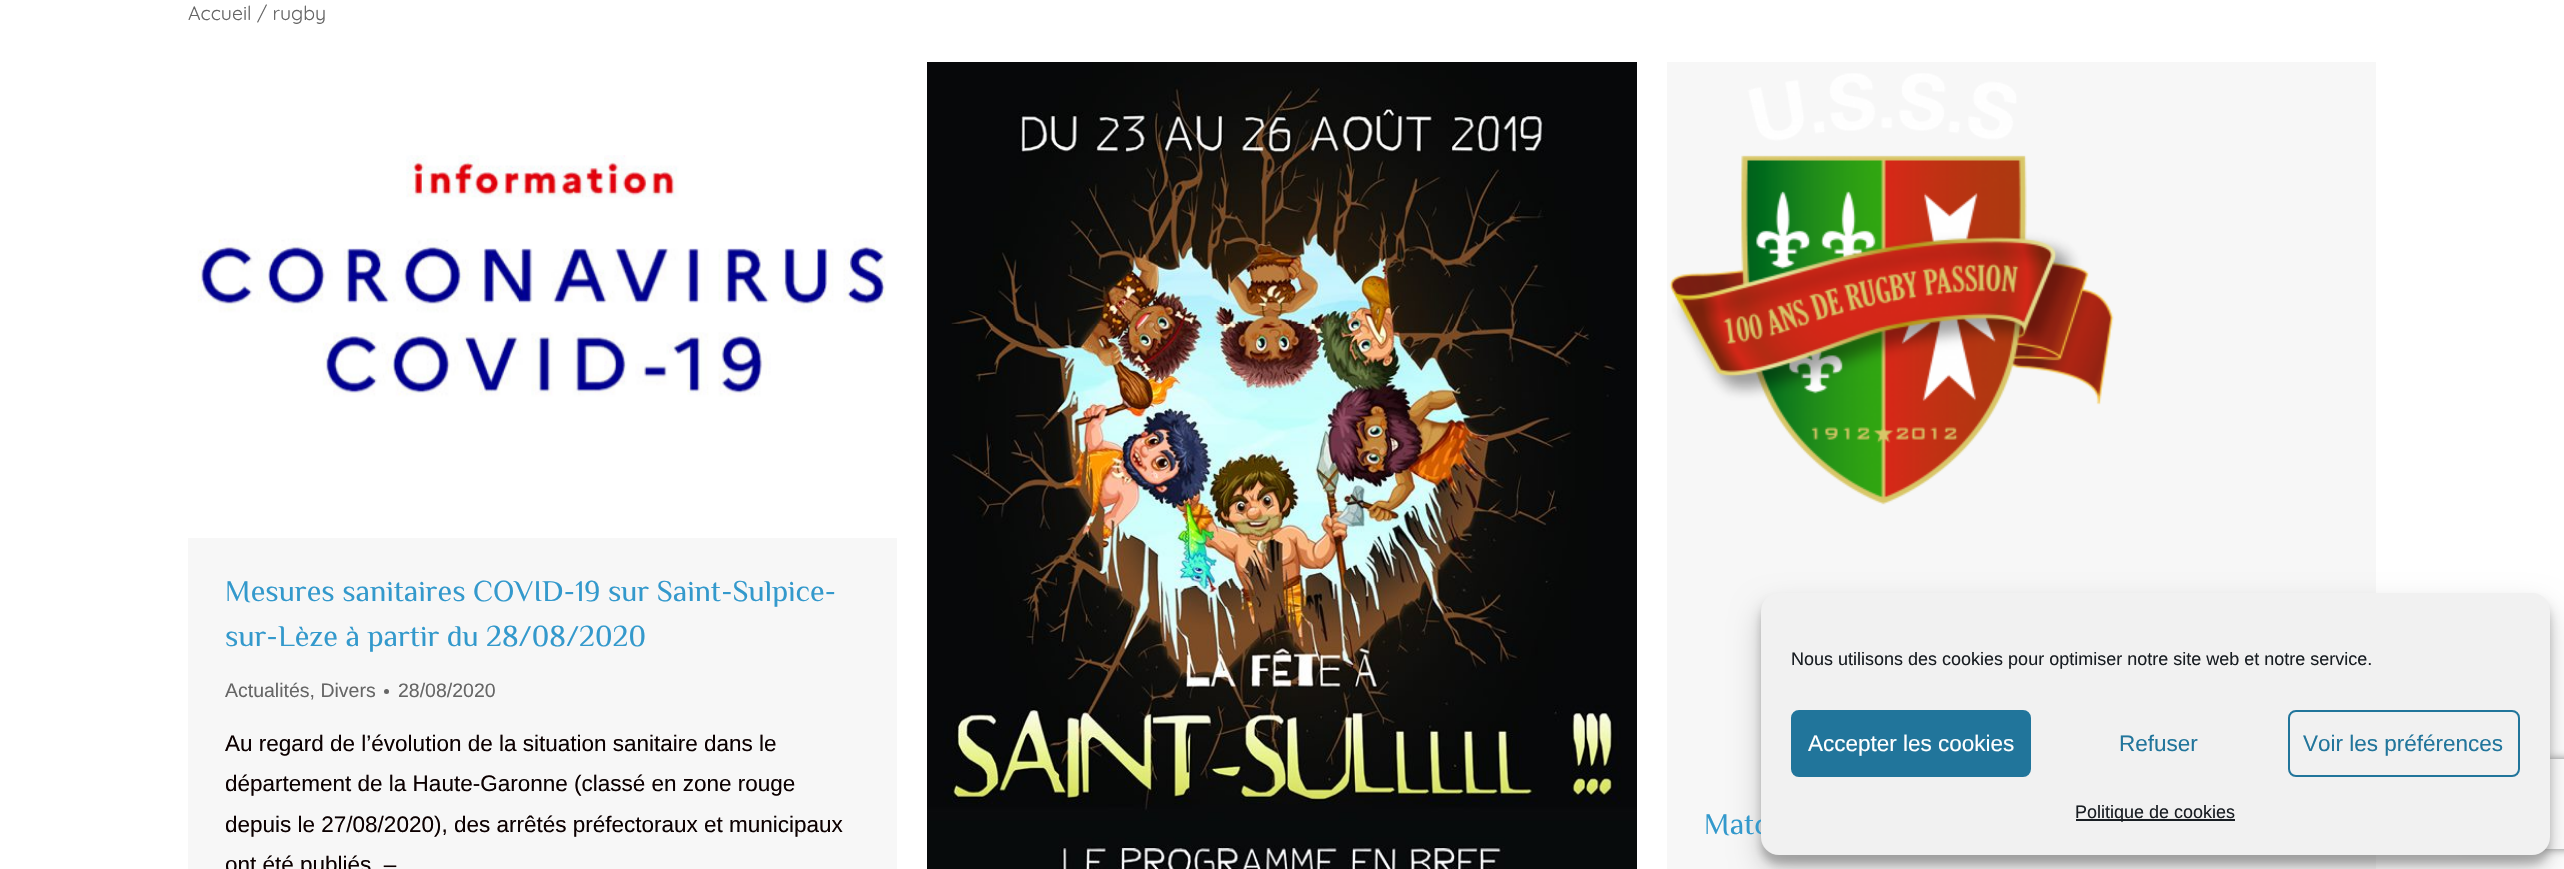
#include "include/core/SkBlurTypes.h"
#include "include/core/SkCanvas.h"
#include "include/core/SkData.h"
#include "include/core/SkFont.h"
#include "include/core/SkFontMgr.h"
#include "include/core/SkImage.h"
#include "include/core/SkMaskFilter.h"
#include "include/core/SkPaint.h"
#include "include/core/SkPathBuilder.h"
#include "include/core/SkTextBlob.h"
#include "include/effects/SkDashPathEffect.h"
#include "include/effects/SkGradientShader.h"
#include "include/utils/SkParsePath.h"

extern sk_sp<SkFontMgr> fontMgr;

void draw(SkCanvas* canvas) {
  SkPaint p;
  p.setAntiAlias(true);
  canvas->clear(SK_ColorWHITE);
  p.setColor(SkColorSetRGB(247, 247, 247));
  canvas->drawRect(SkRect::MakeLTRB(188, 537, 897, 869), p);
  canvas->drawImageRect(SkImages::DeferredFromEncodedData(SkData::MakeFromFileName("images/1.png")), SkRect::MakeLTRB(188, 62, 897, 538), SkSamplingOptions());
  p.setColor(SkColorSetRGB(102, 102, 102));
  canvas->drawCircle(386.5f, 691.5f, 2.5f, p);
  canvas->drawImageRect(SkImages::DeferredFromEncodedData(SkData::MakeFromFileName("images/2.png")), SkRect::MakeLTRB(927, 62, 1637, 869), SkSamplingOptions());
  p.setColor(SkColorSetRGB(247, 247, 247));
  canvas->drawRect(SkRect::MakeLTRB(1667, 62, 2376, 869), p);
  canvas->drawImageRect(SkImages::DeferredFromEncodedData(SkData::MakeFromFileName("images/3.png")), SkRect::MakeLTRB(1669, 73, 2114, 505), SkSamplingOptions());
  p.setColor(SkColorSetARGB(59, 0, 0, 0));
  p.setMaskFilter(SkMaskFilter::MakeBlur(kNormal_SkBlurStyle, 4.5f));
  canvas->drawRoundRect(SkRect::MakeLTRB(1761, 602, 2550, 864), 18, 18, p);
  p.setMaskFilter(nullptr);
  p.setColor(SkColorSetARGB(48, 0, 0, 0));
  p.setMaskFilter(SkMaskFilter::MakeBlur(kNormal_SkBlurStyle, 15));
  canvas->drawRoundRect(SkRect::MakeLTRB(1761, 608, 2550, 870), 18, 18, p);
  p.setMaskFilter(nullptr);
  canvas->save();
  canvas->clipPath(SkPathBuilder(SkPathFillType::kEvenOdd).moveTo(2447, 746).lineTo(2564, 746).lineTo(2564, 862).lineTo(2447, 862).close().moveTo(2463, 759).lineTo(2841, 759).cubicTo(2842.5f, 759, 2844, 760.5f, 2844, 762).lineTo(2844, 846).cubicTo(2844, 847.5f, 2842.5f, 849, 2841, 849).lineTo(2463, 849).cubicTo(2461.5f, 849, 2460, 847.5f, 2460, 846).lineTo(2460, 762).cubicTo(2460, 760.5f, 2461.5f, 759, 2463, 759).close().detach(), true);
  p.setColor(SkColorSetRGB(128, 128, 128));
  p.setMaskFilter(SkMaskFilter::MakeBlur(kNormal_SkBlurStyle, 4));
  canvas->drawRoundRect(SkRect::MakeLTRB(2460, 759, 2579, 849), 3, 3, p);
  p.setMaskFilter(nullptr);
  canvas->restore();
  SkFont font1(fontMgr->matchFamilyStyle("Quicksand", SkFontStyle::Normal()), 19.5f);
  font1.setSubpixel(true);
  p.setColor(SkColorSetRGB(102, 102, 102));
  canvas->drawString("Accueil / rugby", 188, 20, font1, p);
  SkFont font2(fontMgr->matchFamilyStyle("Philosopher", SkFontStyle::Normal()), 30);
  font2.setSubpixel(true);
  p.setColor(SkColorSetRGB(51, 153, 204));
  canvas->drawString("Mesures sanitaires COVID-19 sur Saint-Sulpice-", 225, 601, font2, p);
  canvas->drawString("sur-Lèze à partir du 28/08/2020", 225, 646, font2, p);
  SkFont font3(fontMgr->matchFamilyStyle("Liberation Sans", SkFontStyle::Normal()), 19.5f);
  font3.setSubpixel(true);
  p.setColor(SkColorSetRGB(102, 102, 102));
  canvas->drawString("Actualités, Divers", 225, 697, font3, p);
  canvas->drawString("28/08/2020", 398, 697, font3, p);
  SkFont font4(fontMgr->matchFamilyStyle("Liberation Sans", SkFontStyle::Normal()), 22.5f);
  font4.setSubpixel(true);
  p.setColor(SkColorSetRGB(12, 0, 0));
  canvas->drawString("Au regard de l’évolution de la situation sanitaire dans le", 225, 751, font4, p);
  canvas->drawString("département de la Haute-Garonne (classé en zone rouge", 225, 791, font4, p);
  canvas->drawString("depuis le 27/08/2020), des arrêtés préfectoraux et municipaux", 225, 832, font4, p);
  canvas->drawString("ont été publiés. –", 225, 872, font4, p);
  p.setColor(SkColorSetRGB(51, 153, 204));
  canvas->drawString("Matc", 1704, 834, font2, p);
  p.setColor(SkColorSetRGB(241, 241, 241));
  canvas->drawRoundRect(SkRect::MakeLTRB(1761, 593, 2550, 855), 18, 18, p);
  SkFont font5(fontMgr->matchFamilyStyle("Liberation Sans", SkFontStyle::Normal()), 18);
  font5.setSubpixel(true);
  p.setColor(SkColorSetRGB(25, 30, 35));
  canvas->drawString("Nous utilisons des cookies pour optimiser notre site web et notre service.", 1791, 665, font5, p);
  p.setColor(SkColorSetRGB(33, 117, 155));
  canvas->drawRoundRect(SkRect::MakeLTRB(1792, 711, 2030, 776), 7, 7, p);
  p.setStyle(SkPaint::kStroke_Style);
  p.setStrokeWidth(2);
  canvas->drawRoundRect(SkRect::MakeLTRB(1792, 711, 2030, 776), 7, 7, p);
  p.setStyle(SkPaint::kFill_Style);
  p.setColor(SK_ColorWHITE);
  canvas->drawString("Accepter les cookies", 1808, 751, font4, p);
  p.setColor(SkColorSetRGB(33, 117, 155));
  canvas->drawString("Refuser", 2119, 751, font4, p);
  p.setStyle(SkPaint::kStroke_Style);
  canvas->drawRoundRect(SkRect::MakeLTRB(2289, 711, 2519, 776), 7, 7, p);
  p.setStyle(SkPaint::kFill_Style);
  canvas->drawString("Voir les préférences", 2303, 751, font4, p);
  p.setColor(SkColorSetRGB(25, 30, 35));
  canvas->drawRect(SkRect::MakeLTRB(2076, 819, 2235, 821), p);
  canvas->drawString("Politique de cookies", 2075, 818, font5, p);
}
